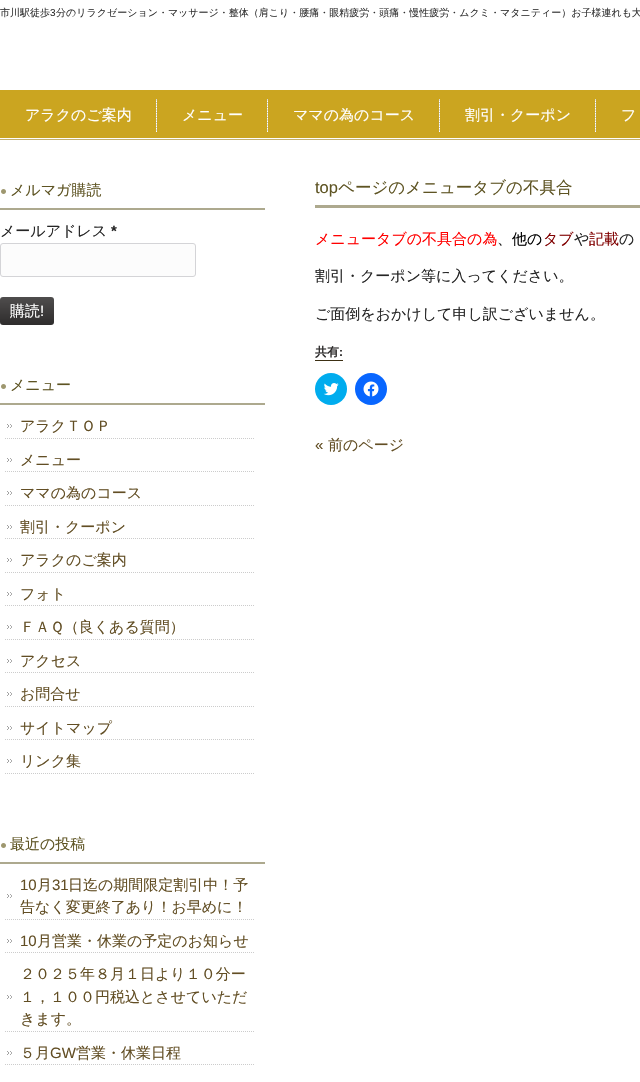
#include "include/core/SkBlurTypes.h"
#include "include/core/SkCanvas.h"
#include "include/core/SkData.h"
#include "include/core/SkFont.h"
#include "include/core/SkFontMgr.h"
#include "include/core/SkImage.h"
#include "include/core/SkMaskFilter.h"
#include "include/core/SkPaint.h"
#include "include/core/SkPathBuilder.h"
#include "include/core/SkTextBlob.h"
#include "include/effects/SkDashPathEffect.h"
#include "include/effects/SkGradientShader.h"
#include "include/utils/SkParsePath.h"

extern sk_sp<SkFontMgr> fontMgr;

void draw(SkCanvas* canvas) {
  SkPaint p;
  p.setAntiAlias(true);
  canvas->clear(SK_ColorWHITE);
  canvas->drawImageRect(SkImages::DeferredFromEncodedData(SkData::MakeFromFileName("images/1.png")), SkRect::MakeLTRB(0, 90, 640, 140), SkSamplingOptions());
  canvas->drawImageRect(SkImages::DeferredFromEncodedData(SkData::MakeFromFileName("images/2.png")), SkRect::MakeLTRB(156, 99, 157, 132), SkSamplingOptions());
  canvas->drawImageRect(SkImages::DeferredFromEncodedData(SkData::MakeFromFileName("images/2.png")), SkRect::MakeLTRB(267, 99, 268, 132), SkSamplingOptions());
  canvas->drawImageRect(SkImages::DeferredFromEncodedData(SkData::MakeFromFileName("images/2.png")), SkRect::MakeLTRB(439, 99, 440, 132), SkSamplingOptions());
  canvas->drawImageRect(SkImages::DeferredFromEncodedData(SkData::MakeFromFileName("images/2.png")), SkRect::MakeLTRB(595, 99, 596, 132), SkSamplingOptions());
  canvas->drawImageRect(SkImages::DeferredFromEncodedData(SkData::MakeFromFileName("images/3.png")), SkRect::MakeLTRB(0, 189, 265, 210), SkSamplingOptions());
  p.setColor(SkColorSetRGB(252, 252, 252));
  canvas->drawRoundRect(SkRect::MakeLTRB(0.5f, 243.5f, 195.5f, 276.5f), 2.5f, 2.5f, p);
  p.setStyle(SkPaint::kStroke_Style);
  p.setStrokeWidth(1);
  p.setColor(SkColorSetRGB(212, 212, 215));
  canvas->drawRoundRect(SkRect::MakeLTRB(0.5f, 243.5f, 195.5f, 276.5f), 2.5f, 2.5f, p);
  p.setStyle(SkPaint::kFill_Style);
  {
    const SkColor colors[] = {SkColorSetRGB(79, 77, 77), SkColorSetRGB(46, 44, 44)};
    const float stops[] = {0, 1};
    const SkPoint ends[] = {{27, 297}, {27, 325}};
    p.setShader(SkGradientShader::MakeLinear(ends, colors, stops, 2, SkTileMode::kClamp));
    p.setAlpha(255);
  }
  canvas->drawRoundRect(SkRect::MakeLTRB(0, 297, 54, 325), 3, 3, p);
  canvas->drawImageRect(SkImages::DeferredFromEncodedData(SkData::MakeFromFileName("images/3.png")), SkRect::MakeLTRB(0, 384, 265, 405), SkSamplingOptions());
  p.setStyle(SkPaint::kStroke_Style);
  p.setShader(nullptr);
  p.setColor(SkColorSetRGB(204, 204, 204));
  p.setPathEffect(SkDashPathEffect::Make({{1, 1}}, 0));
  canvas->drawPath(SkPathBuilder().moveTo(5, 438.5f).lineTo(255, 438.5f).detach(), p);
  p.setPathEffect(nullptr);
  canvas->drawImageRect(SkImages::DeferredFromEncodedData(SkData::MakeFromFileName("images/4.png")), SkRect::MakeLTRB(7, 424, 12, 428), SkSamplingOptions());
  p.setPathEffect(SkDashPathEffect::Make({{1, 1}}, 0));
  canvas->drawPath(SkPathBuilder().moveTo(5, 471.5f).lineTo(255, 471.5f).detach(), p);
  p.setPathEffect(nullptr);
  canvas->drawImageRect(SkImages::DeferredFromEncodedData(SkData::MakeFromFileName("images/4.png")), SkRect::MakeLTRB(7, 458, 12, 462), SkSamplingOptions());
  p.setPathEffect(SkDashPathEffect::Make({{1, 1}}, 0));
  canvas->drawPath(SkPathBuilder().moveTo(5, 505.5f).lineTo(255, 505.5f).detach(), p);
  p.setPathEffect(nullptr);
  canvas->drawImageRect(SkImages::DeferredFromEncodedData(SkData::MakeFromFileName("images/4.png")), SkRect::MakeLTRB(7, 491, 12, 495), SkSamplingOptions());
  p.setPathEffect(SkDashPathEffect::Make({{1, 1}}, 0));
  canvas->drawPath(SkPathBuilder().moveTo(5, 538.5f).lineTo(255, 538.5f).detach(), p);
  p.setPathEffect(nullptr);
  canvas->drawImageRect(SkImages::DeferredFromEncodedData(SkData::MakeFromFileName("images/4.png")), SkRect::MakeLTRB(7, 525, 12, 529), SkSamplingOptions());
  p.setPathEffect(SkDashPathEffect::Make({{1, 1}}, 0));
  canvas->drawPath(SkPathBuilder().moveTo(5, 572.5f).lineTo(255, 572.5f).detach(), p);
  p.setPathEffect(nullptr);
  canvas->drawImageRect(SkImages::DeferredFromEncodedData(SkData::MakeFromFileName("images/4.png")), SkRect::MakeLTRB(7, 558, 12, 562), SkSamplingOptions());
  p.setPathEffect(SkDashPathEffect::Make({{1, 1}}, 0));
  canvas->drawPath(SkPathBuilder().moveTo(5, 605.5f).lineTo(255, 605.5f).detach(), p);
  p.setPathEffect(nullptr);
  canvas->drawImageRect(SkImages::DeferredFromEncodedData(SkData::MakeFromFileName("images/4.png")), SkRect::MakeLTRB(7, 592, 12, 596), SkSamplingOptions());
  p.setPathEffect(SkDashPathEffect::Make({{1, 1}}, 0));
  canvas->drawPath(SkPathBuilder().moveTo(5, 639.5f).lineTo(255, 639.5f).detach(), p);
  p.setPathEffect(nullptr);
  canvas->drawImageRect(SkImages::DeferredFromEncodedData(SkData::MakeFromFileName("images/4.png")), SkRect::MakeLTRB(7, 625, 12, 629), SkSamplingOptions());
  p.setPathEffect(SkDashPathEffect::Make({{1, 1}}, 0));
  canvas->drawPath(SkPathBuilder().moveTo(5, 672.5f).lineTo(255, 672.5f).detach(), p);
  p.setPathEffect(nullptr);
  canvas->drawImageRect(SkImages::DeferredFromEncodedData(SkData::MakeFromFileName("images/4.png")), SkRect::MakeLTRB(7, 659, 12, 663), SkSamplingOptions());
  p.setPathEffect(SkDashPathEffect::Make({{1, 1}}, 0));
  canvas->drawPath(SkPathBuilder().moveTo(5, 706.5f).lineTo(255, 706.5f).detach(), p);
  p.setPathEffect(nullptr);
  canvas->drawImageRect(SkImages::DeferredFromEncodedData(SkData::MakeFromFileName("images/4.png")), SkRect::MakeLTRB(7, 692, 12, 696), SkSamplingOptions());
  p.setPathEffect(SkDashPathEffect::Make({{1, 1}}, 0));
  canvas->drawPath(SkPathBuilder().moveTo(5, 739.5f).lineTo(255, 739.5f).detach(), p);
  p.setPathEffect(nullptr);
  canvas->drawImageRect(SkImages::DeferredFromEncodedData(SkData::MakeFromFileName("images/4.png")), SkRect::MakeLTRB(7, 726, 12, 730), SkSamplingOptions());
  p.setPathEffect(SkDashPathEffect::Make({{1, 1}}, 0));
  canvas->drawPath(SkPathBuilder().moveTo(5, 773.5f).lineTo(255, 773.5f).detach(), p);
  p.setPathEffect(nullptr);
  canvas->drawImageRect(SkImages::DeferredFromEncodedData(SkData::MakeFromFileName("images/4.png")), SkRect::MakeLTRB(7, 759, 12, 763), SkSamplingOptions());
  canvas->drawImageRect(SkImages::DeferredFromEncodedData(SkData::MakeFromFileName("images/3.png")), SkRect::MakeLTRB(0, 843, 265, 864), SkSamplingOptions());
  p.setPathEffect(SkDashPathEffect::Make({{1, 1}}, 0));
  canvas->drawPath(SkPathBuilder().moveTo(5, 919.5f).lineTo(255, 919.5f).detach(), p);
  p.setPathEffect(nullptr);
  canvas->drawImageRect(SkImages::DeferredFromEncodedData(SkData::MakeFromFileName("images/4.png")), SkRect::MakeLTRB(7, 894, 12, 898), SkSamplingOptions());
  p.setPathEffect(SkDashPathEffect::Make({{1, 1}}, 0));
  canvas->drawPath(SkPathBuilder().moveTo(5, 952.5f).lineTo(255, 952.5f).detach(), p);
  p.setPathEffect(nullptr);
  canvas->drawImageRect(SkImages::DeferredFromEncodedData(SkData::MakeFromFileName("images/4.png")), SkRect::MakeLTRB(7, 939, 12, 943), SkSamplingOptions());
  p.setPathEffect(SkDashPathEffect::Make({{1, 1}}, 0));
  canvas->drawPath(SkPathBuilder().moveTo(5, 1031.5f).lineTo(255, 1031.5f).detach(), p);
  p.setPathEffect(nullptr);
  canvas->drawImageRect(SkImages::DeferredFromEncodedData(SkData::MakeFromFileName("images/4.png")), SkRect::MakeLTRB(7, 995, 12, 999), SkSamplingOptions());
  p.setPathEffect(SkDashPathEffect::Make({{1, 1}}, 0));
  canvas->drawPath(SkPathBuilder().moveTo(5, 1064.5f).lineTo(255, 1064.5f).detach(), p);
  p.setPathEffect(nullptr);
  canvas->drawImageRect(SkImages::DeferredFromEncodedData(SkData::MakeFromFileName("images/4.png")), SkRect::MakeLTRB(7, 1051, 12, 1055), SkSamplingOptions());
  p.setStyle(SkPaint::kFill_Style);
  p.setColor(SkColorSetRGB(173, 169, 142));
  canvas->drawRect(SkRect::MakeLTRB(315, 205, 640, 208), p);
  p.setColor(SkColorSetRGB(60, 47, 19));
  canvas->drawRect(SkRect::MakeLTRB(315, 360, 343, 361), p);
  p.setColor(SkColorSetRGB(0, 172, 238));
  canvas->drawCircle(331, 389, 16, p);
  canvas->drawImageRect(SkImages::DeferredFromEncodedData(SkData::MakeFromFileName("images/5.png")), SkRect::MakeLTRB(323, 383, 339, 396), SkSamplingOptions());
  p.setColor(SkColorSetRGB(8, 102, 255));
  canvas->drawCircle(371, 389, 16, p);
  canvas->drawImageRect(SkImages::DeferredFromEncodedData(SkData::MakeFromFileName("images/6.png")), SkRect::MakeLTRB(363, 381, 379, 397), SkSamplingOptions());
  SkFont font1(fontMgr->matchFamilyStyle("WenQuanYi Zen Hei", SkFontStyle(500, SkFontStyle::kNormal_Width, SkFontStyle::kUpright_Slant)), 10);
  font1.setSubpixel(true);
  p.setColor(SkColorSetRGB(51, 51, 51));
  canvas->drawString("市川駅徒歩", 0, 16, font1, p);
  SkFont font2(fontMgr->matchFamilyStyle("Liberation Sans", SkFontStyle::Normal()), 10);
  font2.setSubpixel(true);
  canvas->drawString("3", 50, 16, font2, p);
  canvas->drawString("分のリラクゼーション・マッサージ・整体（肩こり・腰痛・眼精疲労・頭痛・慢性疲労・ムクミ・マタニティー）お子様連れも大", 56, 16, font1, p);
  SkFont font3(fontMgr->matchFamilyStyle("WenQuanYi Zen Hei", SkFontStyle(500, SkFontStyle::kNormal_Width, SkFontStyle::kUpright_Slant)), 15);
  font3.setSubpixel(true);
  p.setColor(SK_ColorWHITE);
  canvas->drawString("アラクのご案内", 25, 120, font3, p);
  canvas->drawString("メニュー", 182, 120, font3, p);
  canvas->drawString("ママの為のコース", 293, 120, font3, p);
  canvas->drawString("割引・クーポン", 465, 120, font3, p);
  canvas->drawString("フ", 621, 120, font3, p);
  p.setColor(SkColorSetRGB(94, 84, 35));
  canvas->drawString("メルマガ購読", 10, 195, font3, p);
  p.setColor(SkColorSetRGB(37, 37, 37));
  canvas->drawString("メールアドレス", 0, 236, font3, p);
  SkFont font4(fontMgr->matchFamilyStyle("Liberation Sans", SkFontStyle::Bold()), 15);
  font4.setSubpixel(true);
  canvas->drawString("*", 111, 236, font4, p);
  p.setColor(SK_ColorWHITE);
  canvas->drawString("購読", 10, 316, font3, p);
  SkFont font5(fontMgr->matchFamilyStyle("Liberation Sans", SkFontStyle::Normal()), 15);
  font5.setSubpixel(true);
  canvas->drawString("!", 40, 316, font5, p);
  p.setColor(SkColorSetRGB(94, 84, 35));
  canvas->drawString("メニュー", 10, 390, font3, p);
  p.setColor(SkColorSetRGB(98, 78, 36));
  canvas->drawString("アラクＴＯＰ", 20, 431, font3, p);
  canvas->drawString("メニュー", 20, 465, font3, p);
  canvas->drawString("ママの為のコース", 20, 498, font3, p);
  canvas->drawString("割引・クーポン", 20, 532, font3, p);
  canvas->drawString("アラクのご案内", 20, 565, font3, p);
  canvas->drawString("フォト", 20, 599, font3, p);
  canvas->drawString("ＦＡＱ（良くある質問）", 20, 632, font3, p);
  canvas->drawString("アクセス", 20, 666, font3, p);
  canvas->drawString("お問合せ", 20, 699, font3, p);
  canvas->drawString("サイトマップ", 20, 733, font3, p);
  canvas->drawString("リンク集", 20, 766, font3, p);
  p.setColor(SkColorSetRGB(94, 84, 35));
  canvas->drawString("最近の投稿", 10, 849, font3, p);
  p.setColor(SkColorSetRGB(98, 78, 36));
  canvas->drawString("10", 20, 890, font5, p);
  canvas->drawString("月", 37, 890, font3, p);
  canvas->drawString("31", 52, 890, font5, p);
  canvas->drawString("日迄の期間限定割引中！予", 68, 890, font3, p);
  canvas->drawString("告なく変更終了あり！お早めに！", 20, 912, font3, p);
  canvas->drawString("10", 20, 946, font5, p);
  canvas->drawString("月営業・休業の予定のお知らせ", 37, 946, font3, p);
  canvas->drawString("２０２５年８月１日より１０分ー", 20, 979, font3, p);
  canvas->drawString("１，１００円税込とさせていただ", 20, 1002, font3, p);
  canvas->drawString("きます。", 20, 1024, font3, p);
  canvas->drawString("５月", 20, 1058, font3, p);
  canvas->drawString("GW", 50, 1058, font5, p);
  canvas->drawString("営業・休業日程", 76, 1058, font3, p);
  SkFont font6(fontMgr->matchFamilyStyle("Liberation Sans", SkFontStyle::Normal()), 16.5f);
  font6.setSubpixel(true);
  p.setColor(SkColorSetRGB(94, 84, 35));
  canvas->drawString("top", 315, 193, font6, p);
  SkFont font7(fontMgr->matchFamilyStyle("WenQuanYi Zen Hei", SkFontStyle(500, SkFontStyle::kNormal_Width, SkFontStyle::kUpright_Slant)), 16.5f);
  font7.setSubpixel(true);
  canvas->drawString("ページのメニュータブの不具合", 338, 193, font7, p);
  p.setColor(SkColorSetRGB(255, 0, 0));
  canvas->drawString("メニュータブの不具合の為", 315, 244, font3, p);
  p.setColor(SkColorSetRGB(37, 37, 37));
  canvas->drawString("、", 497, 244, font3, p);
  p.setColor(SK_ColorBLACK);
  canvas->drawString("他の", 512, 244, font3, p);
  p.setColor(SkColorSetRGB(128, 0, 0));
  canvas->drawString("タブ", 543, 244, font3, p);
  p.setColor(SkColorSetRGB(37, 37, 37));
  canvas->drawString("や", 574, 244, font3, p);
  p.setColor(SkColorSetRGB(128, 0, 0));
  canvas->drawString("記載", 589, 244, font3, p);
  p.setColor(SkColorSetRGB(37, 37, 37));
  canvas->drawString("の", 619, 244, font3, p);
  canvas->drawString("割引・クーポン等に入ってください。", 315, 281, font3, p);
  canvas->drawString("ご面倒をおかけして申し訳ございません。", 315, 319, font3, p);
  SkFont font8(fontMgr->matchFamilyStyle("WenQuanYi Zen Hei", SkFontStyle::Bold()), 12);
  font8.setSubpixel(true);
  p.setColor(SkColorSetRGB(46, 44, 44));
  canvas->drawString("共有", 315, 356, font8, p);
  SkFont font9(fontMgr->matchFamilyStyle("Liberation Sans", SkFontStyle::Bold()), 12);
  font9.setSubpixel(true);
  canvas->drawString(":", 339, 356, font9, p);
  p.setColor(SkColorSetRGB(98, 78, 36));
  canvas->drawString("«", 315, 450, font5, p);
  canvas->drawString("前のページ", 328, 450, font3, p);
}
